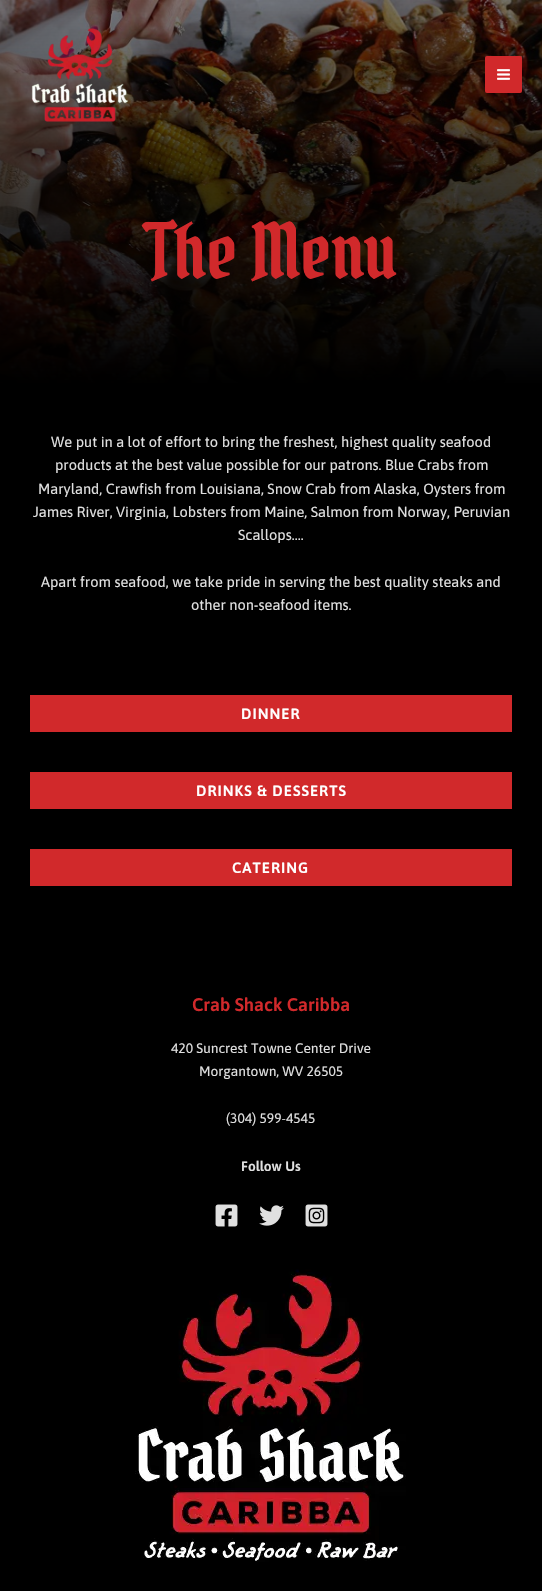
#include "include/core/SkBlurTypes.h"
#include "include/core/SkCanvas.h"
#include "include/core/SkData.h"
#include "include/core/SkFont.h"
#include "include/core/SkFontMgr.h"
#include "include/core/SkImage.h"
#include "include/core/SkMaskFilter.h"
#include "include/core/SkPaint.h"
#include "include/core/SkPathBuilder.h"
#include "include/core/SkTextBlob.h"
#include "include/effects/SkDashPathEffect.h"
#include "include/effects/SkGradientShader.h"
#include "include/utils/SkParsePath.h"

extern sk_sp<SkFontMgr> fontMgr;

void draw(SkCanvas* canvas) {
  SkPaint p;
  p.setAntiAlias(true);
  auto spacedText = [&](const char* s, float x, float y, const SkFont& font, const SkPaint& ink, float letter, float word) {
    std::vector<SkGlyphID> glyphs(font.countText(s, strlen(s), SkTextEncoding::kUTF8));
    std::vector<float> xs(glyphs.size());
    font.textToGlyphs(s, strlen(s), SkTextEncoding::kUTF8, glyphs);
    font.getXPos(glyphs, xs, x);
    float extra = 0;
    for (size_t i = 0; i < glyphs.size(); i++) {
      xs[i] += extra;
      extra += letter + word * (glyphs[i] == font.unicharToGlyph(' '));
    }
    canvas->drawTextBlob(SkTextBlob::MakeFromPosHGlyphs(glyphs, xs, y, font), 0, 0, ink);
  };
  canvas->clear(SK_ColorBLACK);
  canvas->drawImageRect(SkImages::DeferredFromEncodedData(SkData::MakeFromFileName("images/3.png")), SkRect::MakeLTRB(0, 0, 542, 405), SkSamplingOptions());
  canvas->drawImageRect(SkImages::DeferredFromEncodedData(SkData::MakeFromFileName("images/1.png")), SkRect::MakeLTRB(31, 28, 128, 122), SkSamplingOptions());
  p.setColor(SkColorSetRGB(209, 41, 43));
  canvas->drawRoundRect(SkRect::MakeLTRB(485, 56, 522, 93), 2, 2, p);
  canvas->drawImageRect(SkImages::DeferredFromEncodedData(SkData::MakeFromFileName("images/2.png")), SkRect::MakeLTRB(497, 69, 510, 80), SkSamplingOptions());
  canvas->drawRect(SkRect::MakeLTRB(30, 695, 512, 732), p);
  canvas->drawRect(SkRect::MakeLTRB(30, 772, 512, 809), p);
  canvas->drawRect(SkRect::MakeLTRB(30, 849, 512, 886), p);
  canvas->drawImageRect(SkImages::DeferredFromEncodedData(SkData::MakeFromFileName("images/4.png")), SkRect::MakeLTRB(215, 1204, 238, 1227), SkSamplingOptions());
  canvas->drawImageRect(SkImages::DeferredFromEncodedData(SkData::MakeFromFileName("images/5.png")), SkRect::MakeLTRB(259, 1205, 284, 1226), SkSamplingOptions());
  canvas->drawImageRect(SkImages::DeferredFromEncodedData(SkData::MakeFromFileName("images/6.png")), SkRect::MakeLTRB(305, 1204, 328, 1227), SkSamplingOptions());
  canvas->drawImageRect(SkImages::DeferredFromEncodedData(SkData::MakeFromFileName("images/7.png")), SkRect::MakeLTRB(135, 1269, 406, 1562), SkSamplingOptions());
  SkFont font1(fontMgr->matchFamilyStyle("Pirata One", SkFontStyle::Normal()), 75);
  font1.setSubpixel(true);
  canvas->drawString("The Menu", 146, 279, font1, p);
  SkFont font2(fontMgr->matchFamilyStyle("Asap", SkFontStyle::Normal()), 14.6f);
  font2.setSubpixel(true);
  p.setColor(SkColorSetRGB(224, 224, 224));
  canvas->drawString("We put in a lot of effort to bring the freshest, highest quality seafood", 51, 447, font2, p);
  canvas->drawString("products at the best value possible for our patrons. Blue Crabs from", 55, 470, font2, p);
  canvas->drawString("Maryland, Crawfish from Louisiana, Snow Crab from Alaska, Oysters from", 38, 494, font2, p);
  canvas->drawString("James River, Virginia, Lobsters from Maine, Salmon from Norway, Peruvian", 33, 517, font2, p);
  canvas->drawString("Scallops….", 238, 540, font2, p);
  canvas->drawString("Apart from seafood, we take pride in serving the best quality steaks and", 41, 587, font2, p);
  canvas->drawString("other non-seafood items.", 191, 610, font2, p);
  SkFont font3(fontMgr->matchFamilyStyle("Asap", SkFontStyle(600, SkFontStyle::kNormal_Width, SkFontStyle::kUpright_Slant)), 15);
  font3.setSubpixel(true);
  p.setColor(SK_ColorWHITE);
  spacedText("DINNER", 241, 719, font3, p, 1, 0);
  spacedText("DRINKS & DESSERTS", 196, 796, font3, p, 1, 0);
  spacedText("CATERING", 232, 873, font3, p, 1, 0);
  SkFont font4(fontMgr->matchFamilyStyle("Asap", SkFontStyle(600, SkFontStyle::kNormal_Width, SkFontStyle::kUpright_Slant)), 18.25f);
  font4.setSubpixel(true);
  p.setColor(SkColorSetRGB(209, 41, 43));
  canvas->drawString("Crab Shack Caribba", 192, 1011, font4, p);
  SkFont font5(fontMgr->matchFamilyStyle("Asap", SkFontStyle::Normal()), 13.7f);
  font5.setSubpixel(true);
  p.setColor(SkColorSetRGB(224, 224, 224));
  canvas->drawString("420 Suncrest Towne Center Drive", 171, 1053, font5, p);
  canvas->drawString("Morgantown, WV 26505", 199, 1076, font5, p);
  canvas->drawString("(304) 599-4545", 226, 1123, font5, p);
  SkFont font6(fontMgr->matchFamilyStyle("Asap", SkFontStyle(600, SkFontStyle::kNormal_Width, SkFontStyle::kUpright_Slant)), 13.7f);
  font6.setSubpixel(true);
  canvas->drawString("Follow Us", 241, 1171, font6, p);
}
